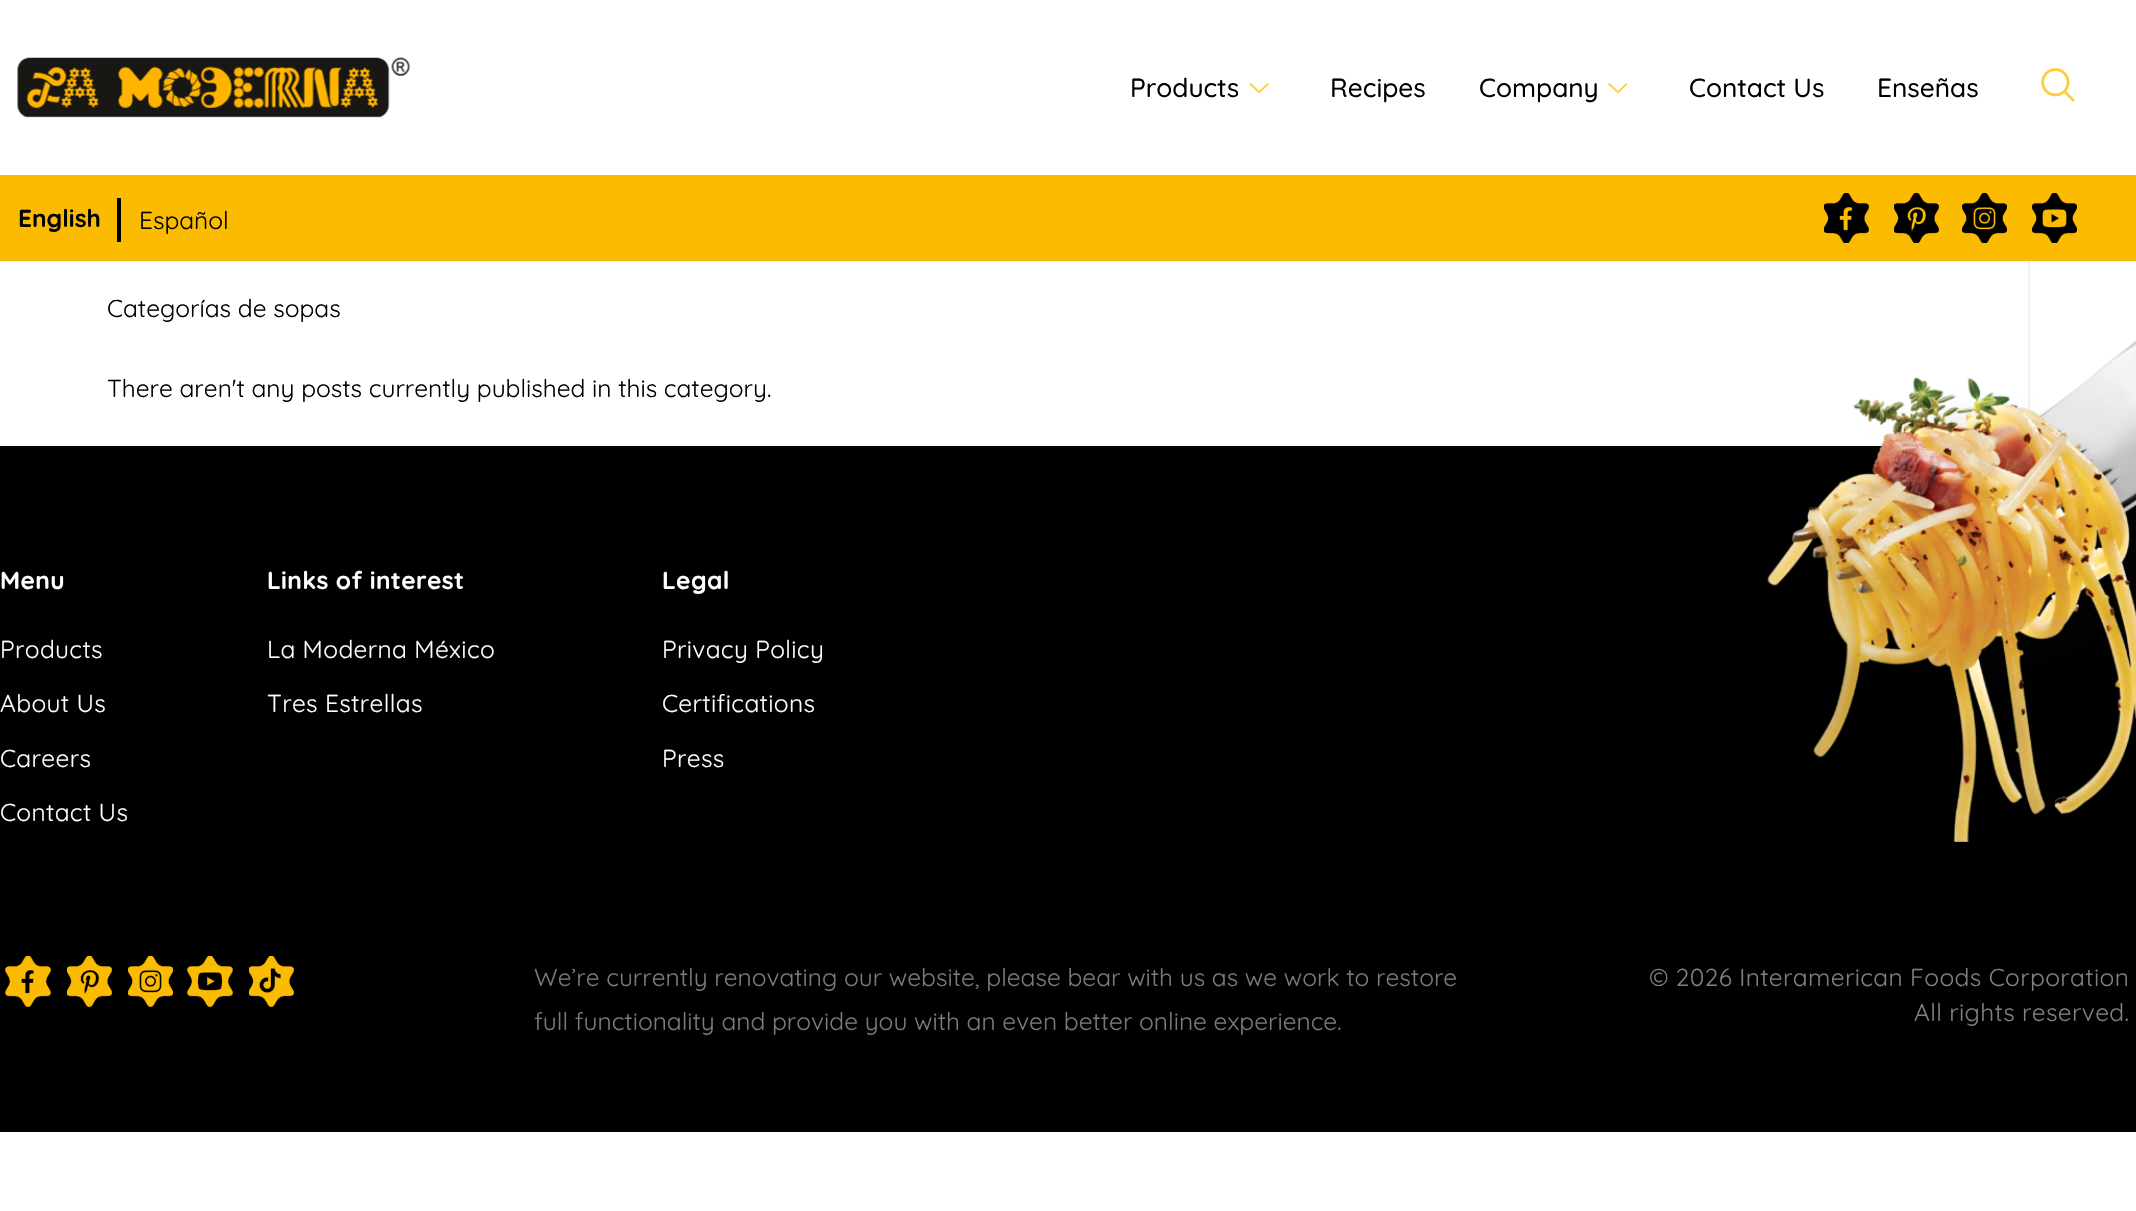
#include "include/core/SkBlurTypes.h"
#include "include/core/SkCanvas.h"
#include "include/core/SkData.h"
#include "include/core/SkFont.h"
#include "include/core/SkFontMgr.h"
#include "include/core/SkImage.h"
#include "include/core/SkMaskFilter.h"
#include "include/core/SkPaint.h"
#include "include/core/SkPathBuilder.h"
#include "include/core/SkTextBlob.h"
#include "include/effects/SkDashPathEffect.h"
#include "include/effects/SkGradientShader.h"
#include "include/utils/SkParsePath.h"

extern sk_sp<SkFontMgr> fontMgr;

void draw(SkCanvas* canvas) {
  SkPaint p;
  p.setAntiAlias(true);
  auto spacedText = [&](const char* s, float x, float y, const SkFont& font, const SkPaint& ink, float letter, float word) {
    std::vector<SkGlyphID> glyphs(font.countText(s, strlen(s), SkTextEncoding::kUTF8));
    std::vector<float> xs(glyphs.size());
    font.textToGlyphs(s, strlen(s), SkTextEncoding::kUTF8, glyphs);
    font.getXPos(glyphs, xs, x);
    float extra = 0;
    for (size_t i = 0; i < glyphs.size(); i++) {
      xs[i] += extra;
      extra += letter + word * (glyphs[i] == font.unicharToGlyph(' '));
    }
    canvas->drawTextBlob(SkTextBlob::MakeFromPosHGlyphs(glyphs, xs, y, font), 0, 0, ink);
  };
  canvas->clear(SK_ColorWHITE);
  canvas->drawImageRect(SkImages::DeferredFromEncodedData(SkData::MakeFromFileName("images/1.png")), SkRect::MakeLTRB(17, 57, 410, 118), SkSamplingOptions());
  canvas->drawImageRect(SkImages::DeferredFromEncodedData(SkData::MakeFromFileName("images/2.png")), SkRect::MakeLTRB(1249, 83, 1269, 94), SkSamplingOptions());
  canvas->drawImageRect(SkImages::DeferredFromEncodedData(SkData::MakeFromFileName("images/3.png")), SkRect::MakeLTRB(1608, 83, 1628, 94), SkSamplingOptions());
  canvas->drawImageRect(SkImages::DeferredFromEncodedData(SkData::MakeFromFileName("images/4.png")), SkRect::MakeLTRB(2041, 68, 2075, 102), SkSamplingOptions());
  p.setColor(SkColorSetRGB(251, 187, 0));
  canvas->drawRect(SkRect::MakeLTRB(0, 175, 2136, 261), p);
  p.setColor(SK_ColorBLACK);
  canvas->drawRect(SkRect::MakeLTRB(117, 198, 121, 242), p);
  canvas->drawImageRect(SkImages::DeferredFromEncodedData(SkData::MakeFromFileName("images/5.png")), SkRect::MakeLTRB(1824, 193, 1869, 243), SkSamplingOptions());
  canvas->drawImageRect(SkImages::DeferredFromEncodedData(SkData::MakeFromFileName("images/6.png")), SkRect::MakeLTRB(1894, 193, 1939, 243), SkSamplingOptions());
  canvas->drawImageRect(SkImages::DeferredFromEncodedData(SkData::MakeFromFileName("images/7.png")), SkRect::MakeLTRB(1962, 193, 2007, 243), SkSamplingOptions());
  canvas->drawImageRect(SkImages::DeferredFromEncodedData(SkData::MakeFromFileName("images/8.png")), SkRect::MakeLTRB(2032, 193, 2077, 243), SkSamplingOptions());
  p.setColor(SkColorSetRGB(241, 241, 241));
  canvas->drawRect(SkRect::MakeLTRB(2028, 261, 2030, 412), p);
  p.setColor(SK_ColorBLACK);
  canvas->drawRect(SkRect::MakeLTRB(0, 446, 2136, 1132), p);
  canvas->drawImageRect(SkImages::DeferredFromEncodedData(SkData::MakeFromFileName("images/9.png")), SkRect::MakeLTRB(1767, 340, 2136, 842), SkSamplingOptions());
  canvas->drawImageRect(SkImages::DeferredFromEncodedData(SkData::MakeFromFileName("images/10.png")), SkRect::MakeLTRB(5, 956, 51, 1007), SkSamplingOptions());
  canvas->drawImageRect(SkImages::DeferredFromEncodedData(SkData::MakeFromFileName("images/11.png")), SkRect::MakeLTRB(67, 956, 112, 1007), SkSamplingOptions());
  canvas->drawImageRect(SkImages::DeferredFromEncodedData(SkData::MakeFromFileName("images/12.png")), SkRect::MakeLTRB(128, 956, 173, 1007), SkSamplingOptions());
  canvas->drawImageRect(SkImages::DeferredFromEncodedData(SkData::MakeFromFileName("images/13.png")), SkRect::MakeLTRB(187, 956, 233, 1007), SkSamplingOptions());
  canvas->drawImageRect(SkImages::DeferredFromEncodedData(SkData::MakeFromFileName("images/14.png")), SkRect::MakeLTRB(249, 956, 294, 1007), SkSamplingOptions());
  SkFont font1(fontMgr->matchFamilyStyle("Quicksand", SkFontStyle(500, SkFontStyle::kNormal_Width, SkFontStyle::kUpright_Slant)), 26.25f);
  font1.setSubpixel(true);
  canvas->drawString("Products", 1130, 97, font1, p);
  canvas->drawString("Recipes", 1330, 97, font1, p);
  canvas->drawString("Company", 1479, 97, font1, p);
  canvas->drawString("Contact Us", 1689, 97, font1, p);
  canvas->drawString("Enseñas", 1877, 97, font1, p);
  SkFont font2(fontMgr->matchFamilyStyle("Quicksand", SkFontStyle::Bold()), 24.5f);
  font2.setSubpixel(true);
  canvas->drawString("English", 18, 227, font2, p);
  SkFont font3(fontMgr->matchFamilyStyle("Quicksand", SkFontStyle::Normal()), 24.5f);
  font3.setSubpixel(true);
  canvas->drawString("Español", 139, 229, font3, p);
  canvas->drawString("Categorías de sopas", 107, 317, font3, p);
  canvas->drawString("There aren't any posts currently published in this category.", 107, 397, font3, p);
  p.setColor(SK_ColorWHITE);
  spacedText("Menu", 0, 589, font2, p, 0.35f, 0);
  spacedText("Products", 0, 658, font3, p, 0.35f, 0);
  spacedText("About Us", 0, 712, font3, p, 0.35f, 0);
  spacedText("Careers", 0, 767, font3, p, 0.35f, 0);
  spacedText("Contact Us", 0, 821, font3, p, 0.35f, 0);
  spacedText("Links of interest", 267, 589, font2, p, 0.35f, 0);
  spacedText("La Moderna México", 267, 658, font3, p, 0.35f, 0);
  spacedText("Tres Estrellas", 267, 712, font3, p, 0.35f, 0);
  spacedText("Legal", 662, 589, font2, p, 0.35f, 0);
  spacedText("Privacy Policy", 662, 658, font3, p, 0.35f, 0);
  spacedText("Certifications", 662, 712, font3, p, 0.35f, 0);
  spacedText("Press", 662, 767, font3, p, 0.35f, 0);
  p.setColor(SkColorSetRGB(122, 122, 122));
  canvas->drawString("We’re currently renovating our website, please bear with us as we work to restore", 534, 986, font3, p);
  canvas->drawString("full functionality and provide you with an even better online experience.", 534, 1030, font3, p);
  p.setColor(SkColorSetRGB(128, 128, 128));
  spacedText("© 2026 Interamerican Foods Corporation", 1649, 986, font3, p, 0.35f, 0);
  spacedText("All rights reserved.", 1914, 1021, font3, p, 0.35f, 0);
}
